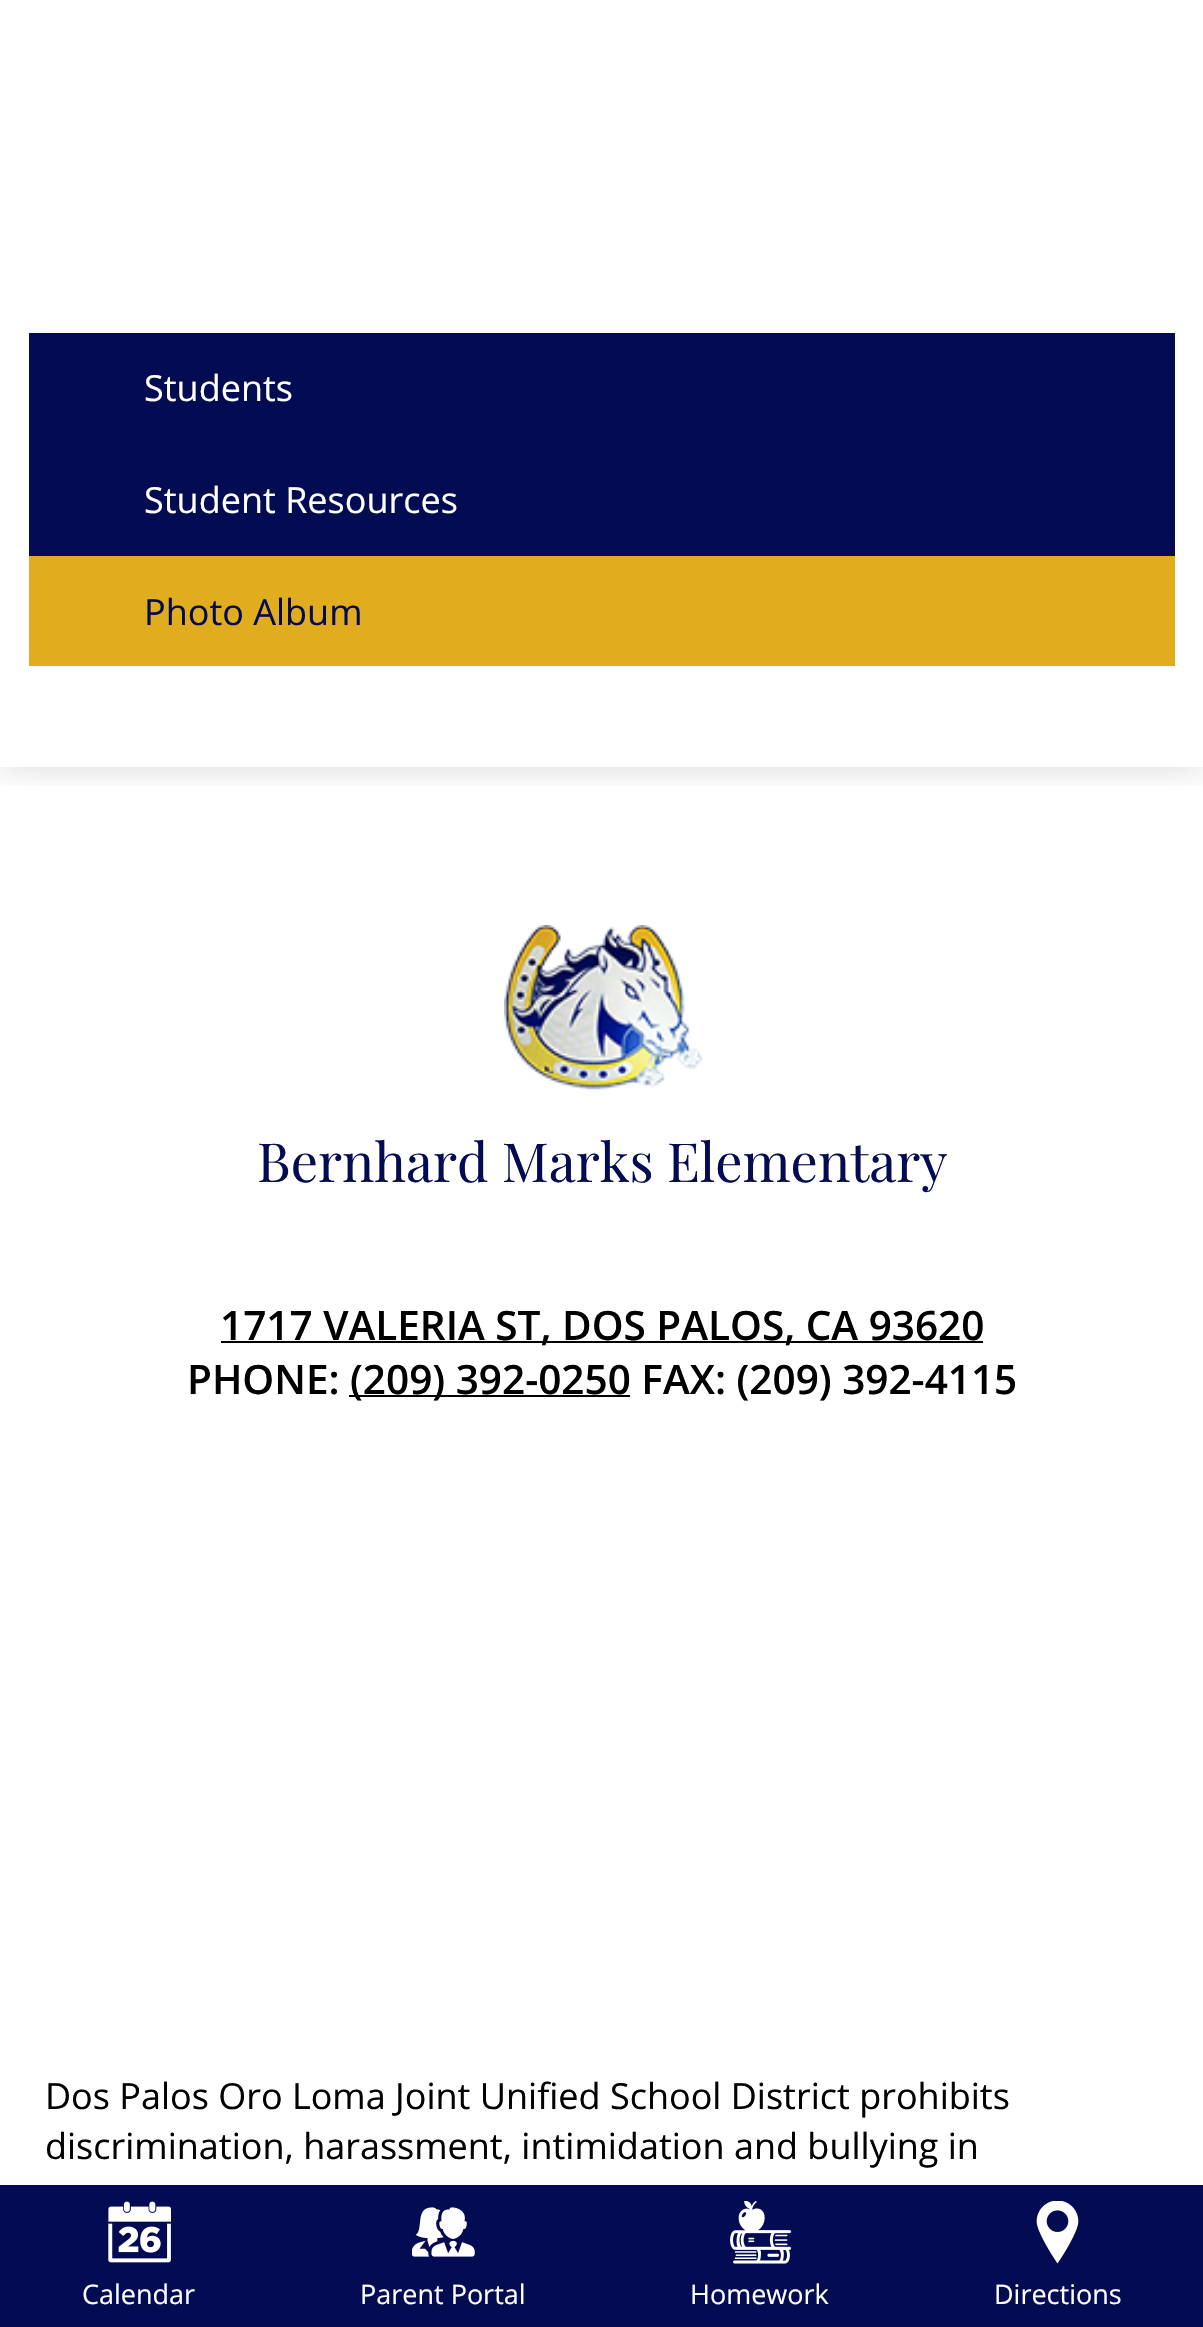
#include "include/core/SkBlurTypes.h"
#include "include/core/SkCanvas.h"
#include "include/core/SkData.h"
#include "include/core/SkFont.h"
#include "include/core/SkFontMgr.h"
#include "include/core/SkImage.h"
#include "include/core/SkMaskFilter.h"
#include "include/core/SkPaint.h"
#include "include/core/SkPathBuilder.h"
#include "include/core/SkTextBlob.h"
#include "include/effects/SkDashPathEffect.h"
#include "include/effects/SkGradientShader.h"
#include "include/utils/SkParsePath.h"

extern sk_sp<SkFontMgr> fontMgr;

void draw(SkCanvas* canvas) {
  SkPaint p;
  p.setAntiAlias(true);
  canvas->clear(SK_ColorWHITE);
  canvas->save();
  canvas->clipRect(SkRect::MakeLTRB(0, 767, 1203, 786));
  p.setColor(SkColorSetARGB(38, 0, 0, 0));
  p.setMaskFilter(SkMaskFilter::MakeBlur(kNormal_SkBlurStyle, 17));
  canvas->drawRect(SkRect::MakeLTRB(0, -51, 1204, 767), p);
  p.setMaskFilter(nullptr);
  canvas->restore();
  p.setColor(SkColorSetRGB(3, 11, 83));
  canvas->drawRect(SkRect::MakeLTRB(29, 333, 1175, 556), p);
  p.setColor(SkColorSetRGB(224, 173, 31));
  canvas->drawRect(SkRect::MakeLTRB(29, 556, 1175, 666), p);
  canvas->drawImageRect(SkImages::DeferredFromEncodedData(SkData::MakeFromFileName("images/1.png")), SkRect::MakeLTRB(504, 925, 702, 1090), SkSamplingOptions());
  p.setColor(SK_ColorBLACK);
  canvas->drawRect(SkRect::MakeLTRB(221, 1341, 983, 1343), p);
  canvas->drawRect(SkRect::MakeLTRB(349, 1395, 630, 1397), p);
  p.setColor(SkColorSetRGB(3, 11, 83));
  canvas->drawRect(SkRect::MakeLTRB(0, 2185, 1203, 2327), p);
  canvas->drawImageRect(SkImages::DeferredFromEncodedData(SkData::MakeFromFileName("images/2.png")), SkRect::MakeLTRB(108, 2201, 171, 2263), SkSamplingOptions());
  canvas->drawImageRect(SkImages::DeferredFromEncodedData(SkData::MakeFromFileName("images/3.png")), SkRect::MakeLTRB(412, 2207, 475, 2257), SkSamplingOptions());
  canvas->drawImageRect(SkImages::DeferredFromEncodedData(SkData::MakeFromFileName("images/4.png")), SkRect::MakeLTRB(730, 2201, 792, 2264), SkSamplingOptions());
  canvas->drawImageRect(SkImages::DeferredFromEncodedData(SkData::MakeFromFileName("images/5.png")), SkRect::MakeLTRB(1036, 2201, 1079, 2264), SkSamplingOptions());
  SkFont font1(fontMgr->matchFamilyStyle("Open Sans", SkFontStyle::Normal()), 36);
  font1.setSubpixel(true);
  p.setColor(SK_ColorWHITE);
  canvas->drawString("Students", 144, 401, font1, p);
  canvas->drawString("Student Resources", 144, 513, font1, p);
  p.setColor(SkColorSetRGB(3, 11, 83));
  canvas->drawString("Photo Album", 144, 625, font1, p);
  SkFont font2(fontMgr->matchFamilyStyle("Playfair Display", SkFontStyle::Normal()), 54);
  font2.setSubpixel(true);
  canvas->drawString("Bernhard Marks Elementary", 257, 1182, font2, p);
  SkFont font3(fontMgr->matchFamilyStyle("Open Sans", SkFontStyle(600, SkFontStyle::kNormal_Width, SkFontStyle::kUpright_Slant)), 40.5f);
  font3.setSubpixel(true);
  p.setColor(SK_ColorBLACK);
  canvas->drawString("1717 VALERIA ST, DOS PALOS, CA 93620", 220, 1340, font3, p);
  canvas->drawString("PHONE:", 187, 1394, font3, p);
  canvas->drawString("(209) 392-0250 FAX: (209) 392-4115", 350, 1394, font3, p);
  canvas->drawString("Dos Palos Oro Loma Joint Unified School District prohibits", 45, 2109, font1, p);
  canvas->drawString("discrimination, harassment, intimidation and bullying in", 45, 2159, font1, p);
  SkFont font4(fontMgr->matchFamilyStyle("Open Sans", SkFontStyle::Normal()), 27);
  font4.setSubpixel(true);
  p.setColor(SK_ColorWHITE);
  canvas->drawString("Calendar", 82, 2304, font4, p);
  canvas->drawString("Parent Portal", 360, 2304, font4, p);
  canvas->drawString("Homework", 690, 2304, font4, p);
  canvas->drawString("Directions", 994, 2304, font4, p);
}
